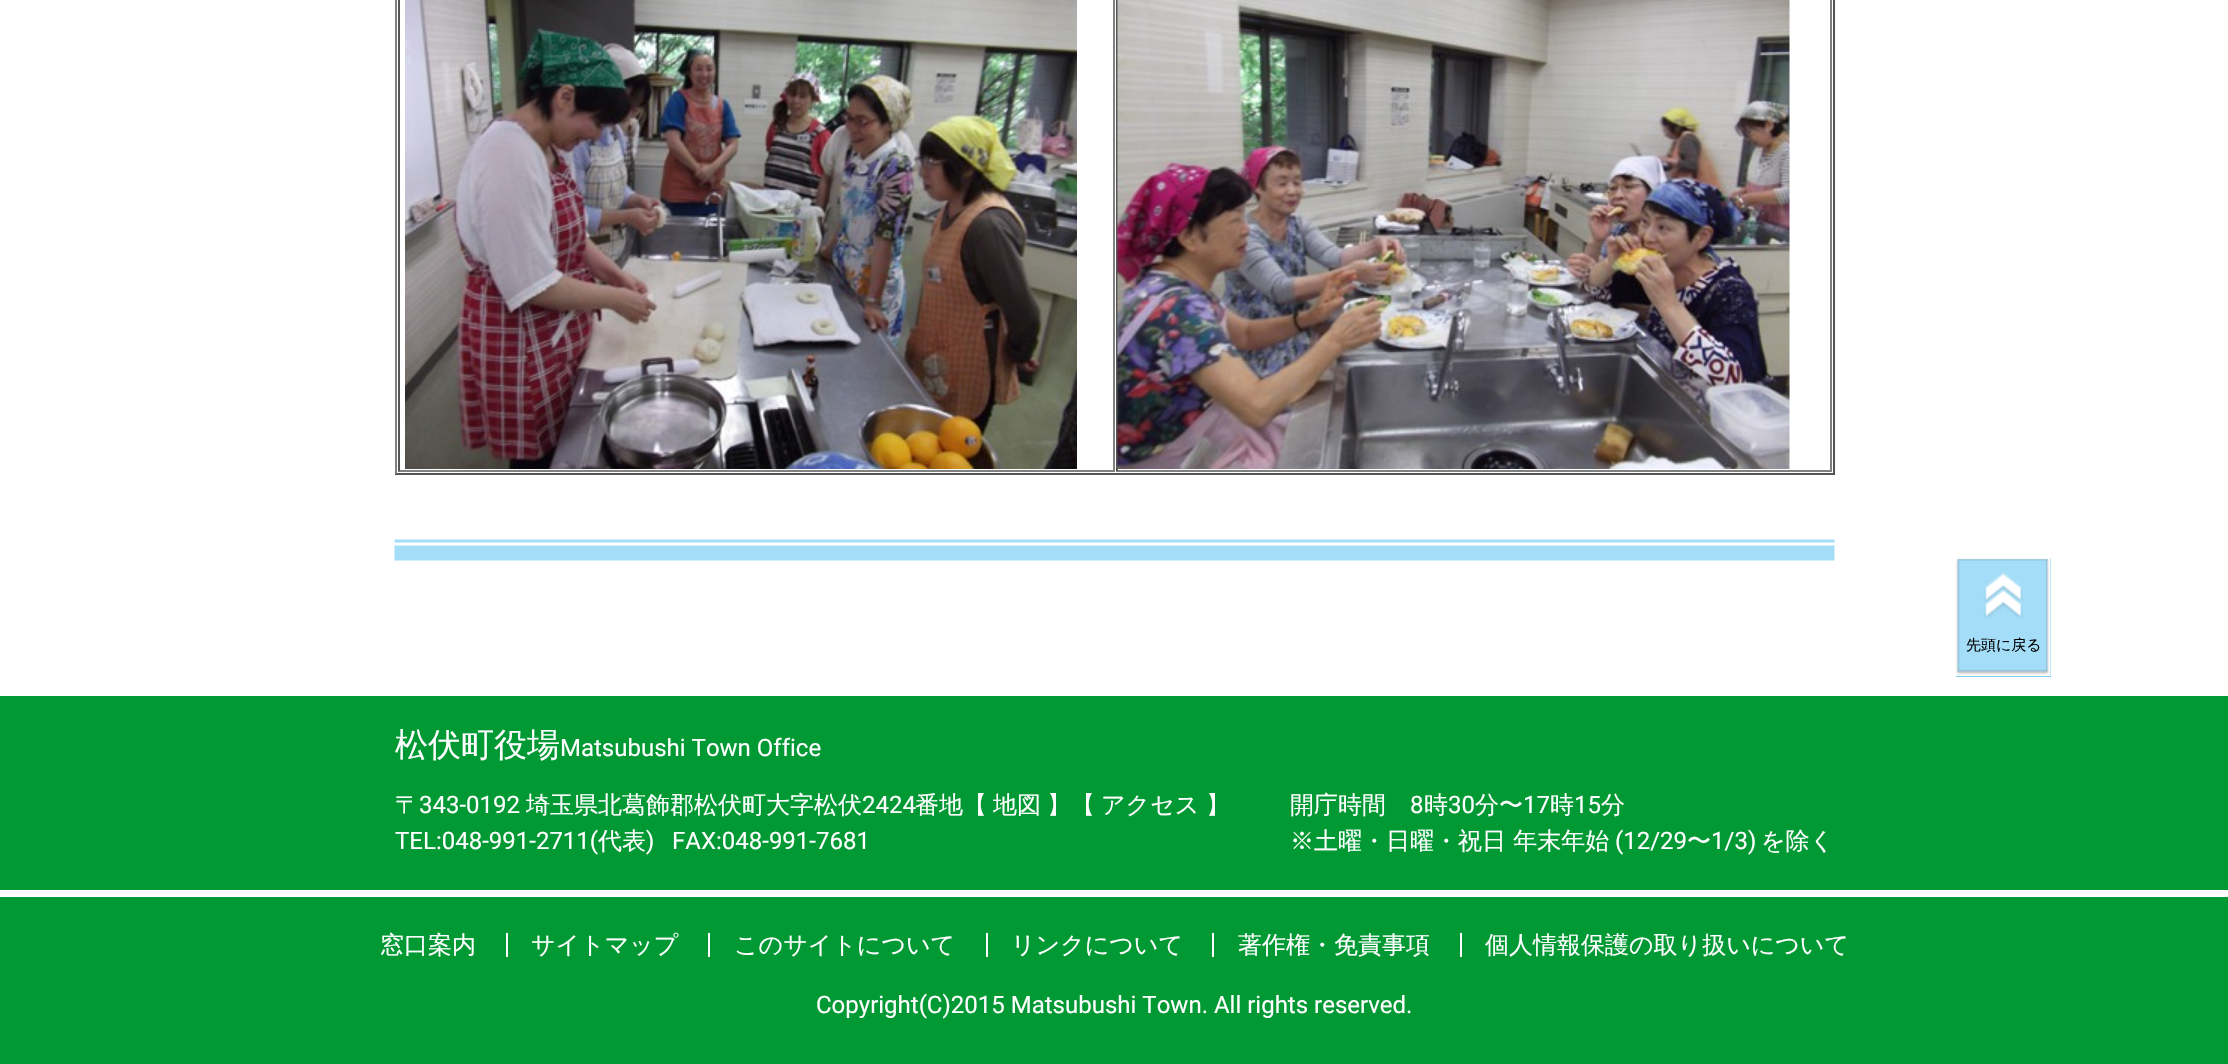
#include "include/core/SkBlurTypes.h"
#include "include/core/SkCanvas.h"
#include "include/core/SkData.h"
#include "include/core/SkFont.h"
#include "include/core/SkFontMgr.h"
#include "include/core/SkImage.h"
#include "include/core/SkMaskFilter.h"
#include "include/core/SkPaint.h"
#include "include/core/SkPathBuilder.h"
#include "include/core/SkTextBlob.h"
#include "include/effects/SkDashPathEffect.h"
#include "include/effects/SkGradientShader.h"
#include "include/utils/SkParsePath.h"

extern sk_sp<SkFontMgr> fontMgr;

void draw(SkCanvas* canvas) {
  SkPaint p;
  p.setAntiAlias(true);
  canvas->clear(SK_ColorWHITE);
  canvas->drawImageRect(SkImages::DeferredFromEncodedData(SkData::MakeFromFileName("images/1.png")), SkRect::MakeLTRB(394, 539, 1835, 561), SkSamplingOptions());
  p.setColor(SkColorSetRGB(85, 85, 85));
  canvas->drawRect(SkRect::MakeLTRB(1833, 0, 1835, 474), p);
  canvas->drawRect(SkRect::MakeLTRB(395, 473, 1835, 475), p);
  p.setColor(SkColorSetRGB(128, 128, 128));
  canvas->drawRect(SkRect::MakeLTRB(395, 0, 397, 474), p);
  canvas->drawRect(SkRect::MakeLTRB(1113, 0, 1115, 471), p);
  canvas->drawRect(SkRect::MakeLTRB(398, 470, 1115, 472), p);
  p.setColor(SkColorSetRGB(85, 85, 85));
  canvas->drawRect(SkRect::MakeLTRB(398, 0, 400, 471), p);
  canvas->drawImageRect(SkImages::DeferredFromEncodedData(SkData::MakeFromFileName("images/2.png")), SkRect::MakeLTRB(405, 0, 1077, 469), SkSamplingOptions());
  p.setColor(SkColorSetRGB(128, 128, 128));
  canvas->drawRect(SkRect::MakeLTRB(1830, 0, 1832, 471), p);
  canvas->drawRect(SkRect::MakeLTRB(1116, 470, 1832, 472), p);
  p.setColor(SkColorSetRGB(85, 85, 85));
  canvas->drawRect(SkRect::MakeLTRB(1116, 0, 1118, 471), p);
  canvas->drawImageRect(SkImages::DeferredFromEncodedData(SkData::MakeFromFileName("images/3.png")), SkRect::MakeLTRB(1117, 0, 1790, 469), SkSamplingOptions());
  p.setColor(SkColorSetRGB(0, 153, 51));
  canvas->drawRect(SkRect::MakeLTRB(0, 696, 2228, 1064), p);
  p.setColor(SkColorSetRGB(126, 206, 244));
  canvas->drawRect(SkRect::MakeLTRB(1956, 558, 2051, 677), p);
  canvas->drawImageRect(SkImages::DeferredFromEncodedData(SkData::MakeFromFileName("images/4.png")), SkRect::MakeLTRB(1956, 558, 2051, 676), SkSamplingOptions());
  p.setColor(SK_ColorWHITE);
  canvas->drawRect(SkRect::MakeLTRB(0, 890, 2228, 897), p);
  canvas->drawRect(SkRect::MakeLTRB(506, 933, 508, 957), p);
  canvas->drawRect(SkRect::MakeLTRB(708, 933, 710, 957), p);
  canvas->drawRect(SkRect::MakeLTRB(986, 933, 988, 957), p);
  canvas->drawRect(SkRect::MakeLTRB(1212, 933, 1214, 957), p);
  canvas->drawRect(SkRect::MakeLTRB(1460, 933, 1462, 957), p);
  SkFont font1(fontMgr->matchFamilyStyle("WenQuanYi Zen Hei", SkFontStyle(500, SkFontStyle::kNormal_Width, SkFontStyle::kUpright_Slant)), 15);
  font1.setSubpixel(true);
  p.setColor(SK_ColorBLACK);
  canvas->drawString("先頭に戻る", 1966, 650, font1, p);
  SkFont font2(fontMgr->matchFamilyStyle("WenQuanYi Zen Hei", SkFontStyle(500, SkFontStyle::kNormal_Width, SkFontStyle::kUpright_Slant)), 33);
  font2.setSubpixel(true);
  p.setColor(SK_ColorWHITE);
  canvas->drawString("松伏町役場", 395, 756, font2, p);
  SkFont font3(fontMgr->matchFamilyStyle("Roboto", SkFontStyle::Normal()), 24);
  font3.setSubpixel(true);
  canvas->drawString("Matsubushi Town Office", 560, 756, font3, p);
  SkFont font4(fontMgr->matchFamilyStyle("WenQuanYi Zen Hei", SkFontStyle(500, SkFontStyle::kNormal_Width, SkFontStyle::kUpright_Slant)), 24);
  font4.setSubpixel(true);
  canvas->drawString("〒", 395, 813, font4, p);
  canvas->drawString("343-0192", 419, 813, font3, p);
  canvas->drawString("埼玉県北葛飾郡松伏町大字松伏", 526, 813, font4, p);
  canvas->drawString("2424", 862, 813, font3, p);
  canvas->drawString("番地【", 915, 813, font4, p);
  canvas->drawString("地図", 993, 813, font4, p);
  canvas->drawString("】【", 1047, 813, font4, p);
  canvas->drawString("アクセス", 1101, 813, font4, p);
  canvas->drawString("】", 1206, 813, font4, p);
  canvas->drawString("TEL:048-991-2711(", 395, 849, font3, p);
  canvas->drawString("代表", 598, 849, font4, p);
  canvas->drawString(")", 646, 849, font3, p);
  canvas->drawString("FAX:048-991-7681", 672, 849, font3, p);
  canvas->drawString("開庁時間", 1290, 813, font4, p);
  canvas->drawString("8", 1410, 813, font3, p);
  canvas->drawString("時", 1424, 813, font4, p);
  canvas->drawString("30", 1448, 813, font3, p);
  canvas->drawString("分〜", 1475, 813, font4, p);
  canvas->drawString("17", 1523, 813, font3, p);
  canvas->drawString("時", 1550, 813, font4, p);
  canvas->drawString("15", 1574, 813, font3, p);
  canvas->drawString("分", 1601, 813, font4, p);
  canvas->drawString("※土曜・日曜・祝日 年末年始", 1290, 849, font4, p);
  canvas->drawString("(12/29", 1615, 849, font3, p);
  canvas->drawString("〜", 1687, 849, font4, p);
  canvas->drawString("1/3)", 1711, 849, font3, p);
  canvas->drawString("を除く", 1761, 849, font4, p);
  canvas->drawString("窓口案内", 380, 953, font4, p);
  canvas->drawString("サイトマップ", 531, 953, font4, p);
  canvas->drawString("このサイトについて", 734, 953, font4, p);
  canvas->drawString("リンクについて", 1011, 953, font4, p);
  canvas->drawString("著作権・免責事項", 1238, 953, font4, p);
  canvas->drawString("個人情報保護の取り扱いについて", 1485, 953, font4, p);
  canvas->drawString("Copyright(C)2015 Matsubushi Town. All rights reserved.", 816, 1013, font3, p);
}
